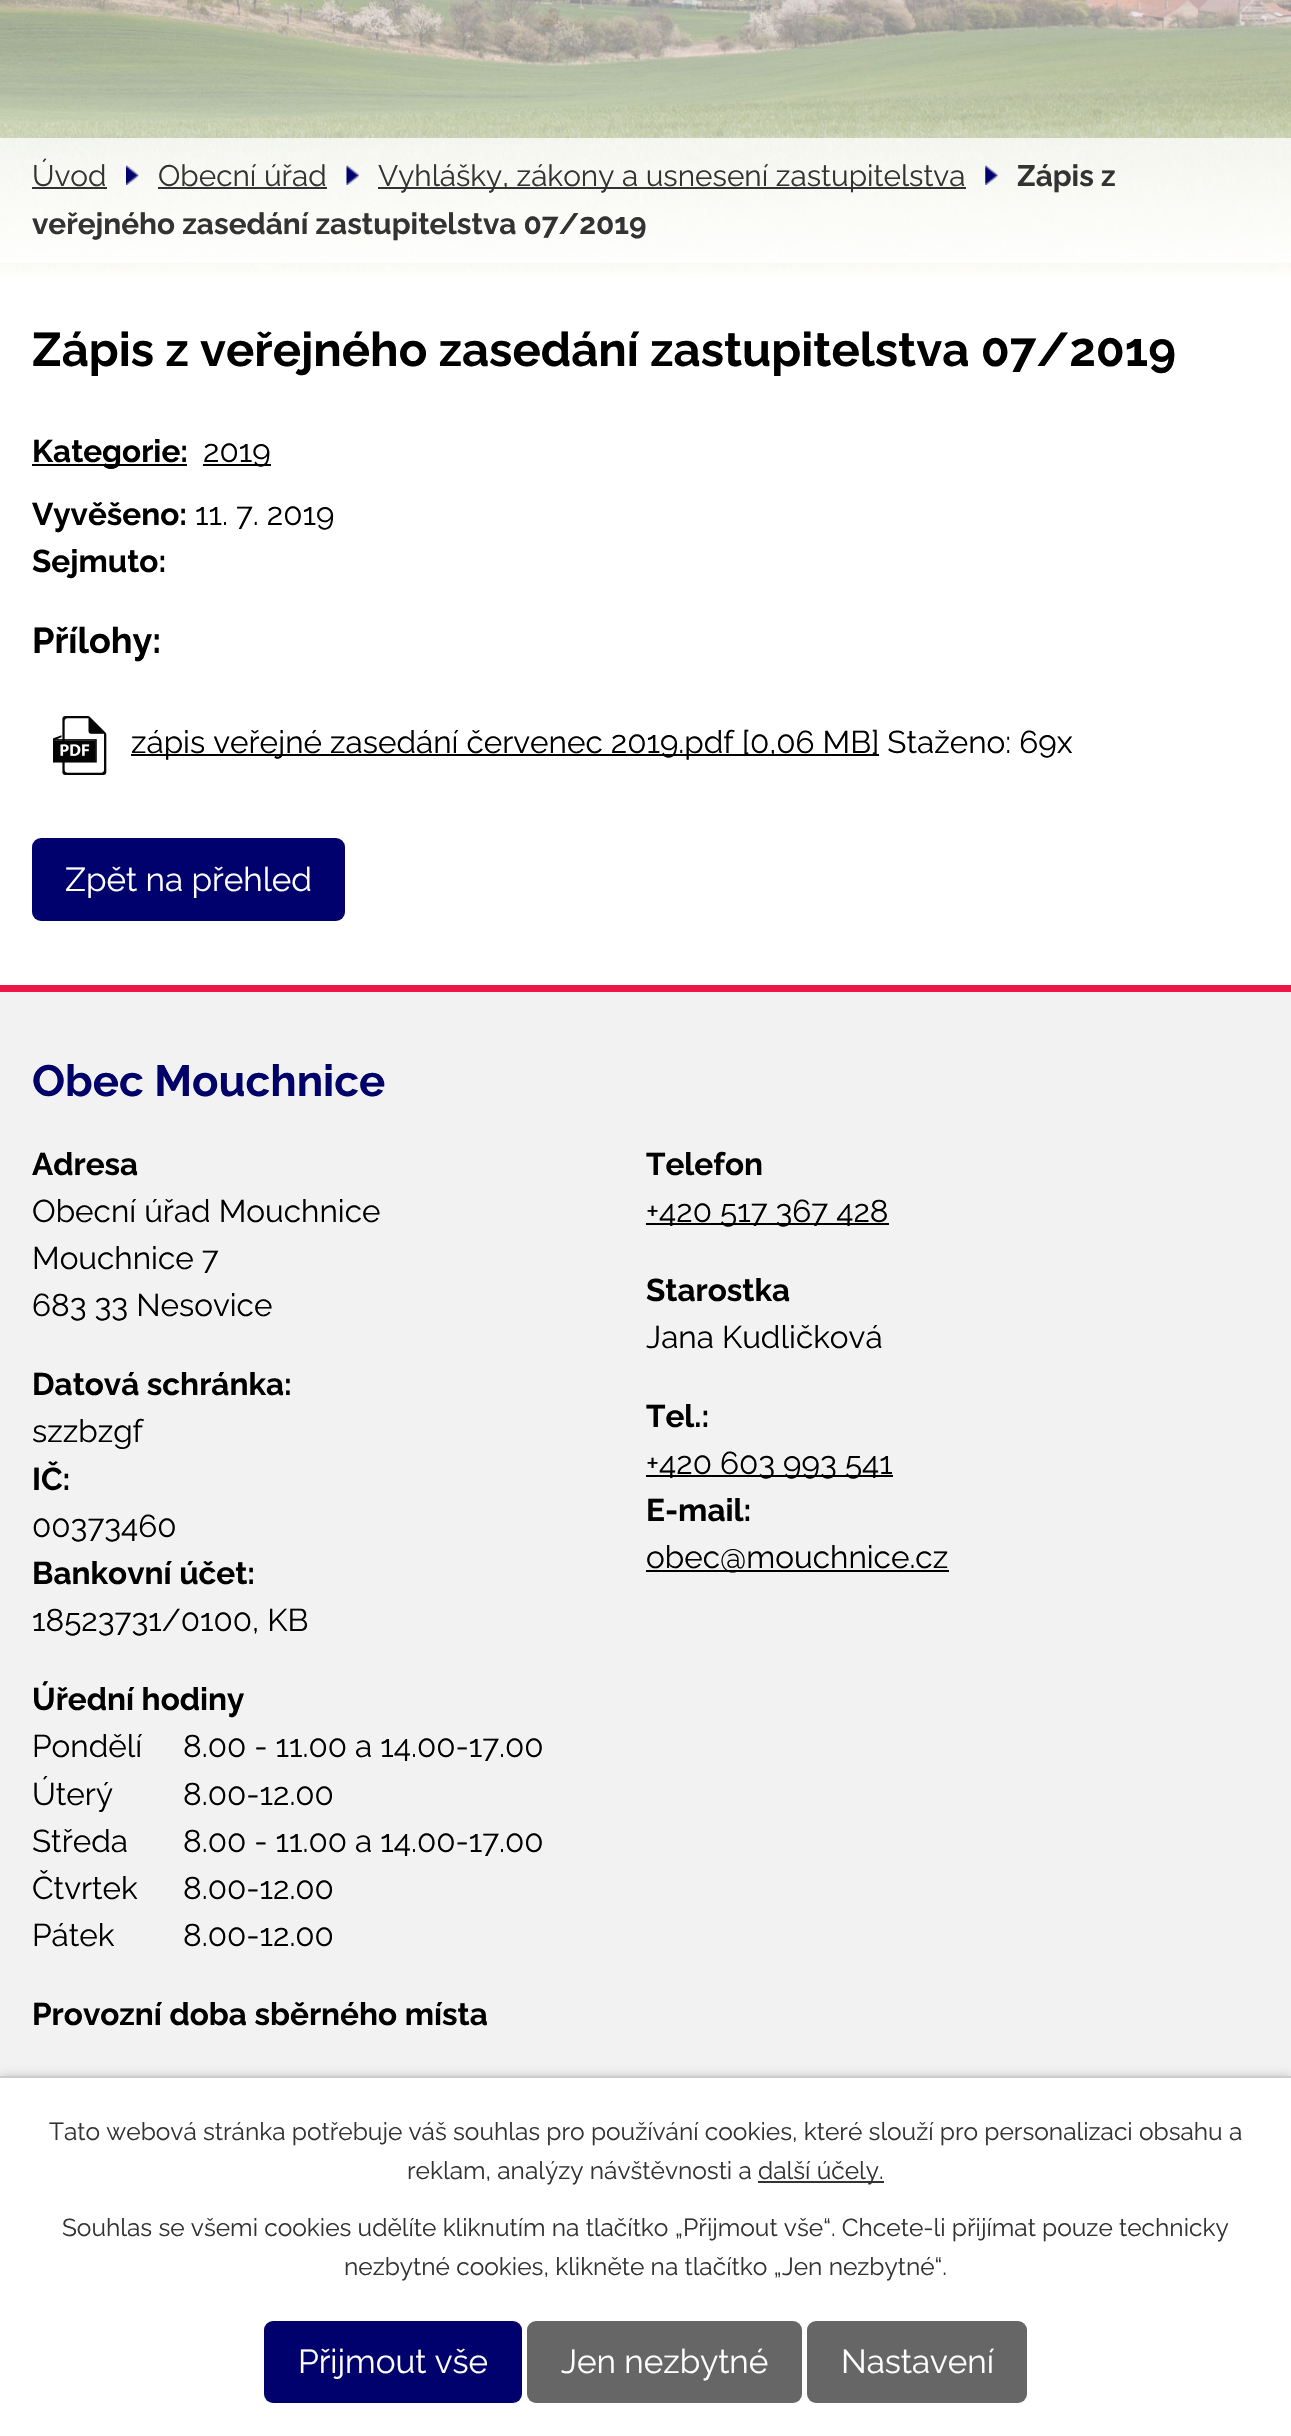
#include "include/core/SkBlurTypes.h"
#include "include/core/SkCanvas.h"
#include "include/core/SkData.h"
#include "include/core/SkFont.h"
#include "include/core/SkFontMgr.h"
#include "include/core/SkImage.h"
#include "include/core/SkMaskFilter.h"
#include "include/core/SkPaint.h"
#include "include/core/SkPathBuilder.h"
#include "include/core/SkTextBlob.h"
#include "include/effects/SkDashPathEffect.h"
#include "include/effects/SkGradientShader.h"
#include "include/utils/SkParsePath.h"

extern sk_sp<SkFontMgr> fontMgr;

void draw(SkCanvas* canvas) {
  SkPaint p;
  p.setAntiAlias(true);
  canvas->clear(SK_ColorWHITE);
  canvas->drawImageRect(SkImages::DeferredFromEncodedData(SkData::MakeFromFileName("images/1.png")), SkRect::MakeLTRB(0, 0, 1291, 276), SkSamplingOptions());
  p.setColor(SkColorSetARGB(199, 255, 255, 255));
  canvas->drawRect(SkRect::MakeLTRB(0, 138, 1291, 263), p);
  p.setColor(SkColorSetRGB(51, 51, 51));
  canvas->drawRect(SkRect::MakeLTRB(32, 187, 107, 189), p);
  canvas->drawImageRect(SkImages::DeferredFromEncodedData(SkData::MakeFromFileName("images/2.png")), SkRect::MakeLTRB(126, 165, 139, 185), SkSamplingOptions());
  canvas->drawRect(SkRect::MakeLTRB(158, 187, 327, 189), p);
  canvas->drawImageRect(SkImages::DeferredFromEncodedData(SkData::MakeFromFileName("images/3.png")), SkRect::MakeLTRB(346, 165, 359, 185), SkSamplingOptions());
  canvas->drawRect(SkRect::MakeLTRB(378, 187, 966, 189), p);
  canvas->drawImageRect(SkImages::DeferredFromEncodedData(SkData::MakeFromFileName("images/4.png")), SkRect::MakeLTRB(985, 165, 998, 185), SkSamplingOptions());
  p.setColor(SK_ColorBLACK);
  canvas->drawRect(SkRect::MakeLTRB(32, 464, 187, 466), p);
  canvas->drawRect(SkRect::MakeLTRB(203, 464, 271, 466), p);
  canvas->drawImageRect(SkImages::DeferredFromEncodedData(SkData::MakeFromFileName("images/5.png")), SkRect::MakeLTRB(53, 716, 107, 775), SkSamplingOptions());
  canvas->drawRect(SkRect::MakeLTRB(131, 754, 879, 756), p);
  p.setColor(SkColorSetRGB(0, 1, 109));
  canvas->drawRoundRect(SkRect::MakeLTRB(32, 838, 345, 921), 9, 9, p);
  p.setColor(SkColorSetRGB(242, 242, 242));
  canvas->drawRect(SkRect::MakeLTRB(0, 992, 1291, 2076), p);
  p.setColor(SkColorSetRGB(236, 23, 71));
  canvas->drawRect(SkRect::MakeLTRB(0, 985, 1291, 992), p);
  p.setColor(SK_ColorBLACK);
  canvas->drawRect(SkRect::MakeLTRB(646, 1223, 889, 1225), p);
  canvas->drawRect(SkRect::MakeLTRB(646, 1475, 893, 1477), p);
  canvas->drawRect(SkRect::MakeLTRB(646, 1570, 949, 1572), p);
  p.setColor(SkColorSetARGB(51, 0, 0, 0));
  p.setMaskFilter(SkMaskFilter::MakeBlur(kNormal_SkBlurStyle, 4.5f));
  canvas->drawRect(SkRect::MakeLTRB(0, 2076, 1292, 2436), p);
  p.setMaskFilter(nullptr);
  p.setColor(SK_ColorWHITE);
  canvas->drawRect(SkRect::MakeLTRB(0, 2078, 1291, 2436), p);
  p.setColor(SkColorSetRGB(204, 204, 204));
  canvas->drawRect(SkRect::MakeLTRB(0, 2076, 1291, 2078), p);
  p.setColor(SkColorSetRGB(51, 51, 51));
  canvas->drawRect(SkRect::MakeLTRB(758, 2181, 884, 2183), p);
  p.setColor(SkColorSetRGB(0, 1, 109));
  canvas->drawRoundRect(SkRect::MakeLTRB(264, 2321, 522, 2403), 9, 9, p);
  p.setColor(SkColorSetRGB(102, 102, 102));
  canvas->drawRoundRect(SkRect::MakeLTRB(527, 2321, 802, 2403), 9, 9, p);
  canvas->drawRoundRect(SkRect::MakeLTRB(807, 2321, 1027, 2403), 9, 9, p);
  SkFont font1(fontMgr->matchFamilyStyle("Raleway", SkFontStyle::Normal()), 29.75f);
  font1.setSubpixel(true);
  p.setColor(SkColorSetRGB(51, 51, 51));
  canvas->drawString("Úvod", 32, 186, font1, p);
  canvas->drawString("Obecní úřad", 158, 186, font1, p);
  canvas->drawString("Vyhlášky, zákony a usnesení zastupitelstva", 378, 186, font1, p);
  SkFont font2(fontMgr->matchFamilyStyle("Raleway", SkFontStyle::Bold()), 29.75f);
  font2.setSubpixel(true);
  canvas->drawString("Zápis z", 1017, 186, font2, p);
  canvas->drawString("veřejného zasedání zastupitelstva 07/2019", 32, 234, font2, p);
  SkFont font3(fontMgr->matchFamilyStyle("Raleway", SkFontStyle::Bold()), 47.25f);
  font3.setSubpixel(true);
  p.setColor(SK_ColorBLACK);
  canvas->drawString("Zápis z veřejného zasedání zastupitelstva 07/2019", 32, 366, font3, p);
  SkFont font4(fontMgr->matchFamilyStyle("Raleway", SkFontStyle::Bold()), 31.5f);
  font4.setSubpixel(true);
  canvas->drawString("Kategorie:", 32, 462, font4, p);
  SkFont font5(fontMgr->matchFamilyStyle("Raleway", SkFontStyle::Normal()), 31.5f);
  font5.setSubpixel(true);
  canvas->drawString("2019", 203, 462, font5, p);
  canvas->drawString("Vyvěšeno:", 32, 525, font4, p);
  canvas->drawString("11. 7. 2019", 195, 525, font5, p);
  canvas->drawString("Sejmuto:", 32, 572, font4, p);
  SkFont font6(fontMgr->matchFamilyStyle("Raleway", SkFontStyle::Bold()), 36);
  font6.setSubpixel(true);
  canvas->drawString("Přílohy:", 32, 653, font6, p);
  canvas->drawString("zápis veřejné zasedání červenec 2019.pdf [0,06 MB] Staženo: 69x", 131, 753, font5, p);
  SkFont font7(fontMgr->matchFamilyStyle("Raleway", SkFontStyle::Normal()), 33.25f);
  font7.setSubpixel(true);
  p.setColor(SK_ColorWHITE);
  canvas->drawString("Zpět na přehled", 65, 891, font7, p);
  SkFont font8(fontMgr->matchFamilyStyle("Raleway", SkFontStyle::Bold()), 43.75f);
  font8.setSubpixel(true);
  p.setColor(SkColorSetRGB(0, 1, 105));
  canvas->drawString("Obec Mouchnice", 32, 1096, font8, p);
  p.setColor(SK_ColorBLACK);
  canvas->drawString("Adresa", 32, 1175, font4, p);
  canvas->drawString("Obecní úřad Mouchnice", 32, 1222, font5, p);
  canvas->drawString("Mouchnice 7", 32, 1269, font5, p);
  canvas->drawString("683 33 Nesovice", 32, 1316, font5, p);
  canvas->drawString("Datová schránka:", 32, 1395, font4, p);
  canvas->drawString("szzbzgf", 32, 1442, font5, p);
  canvas->drawString("IČ:", 32, 1490, font4, p);
  canvas->drawString("00373460", 32, 1537, font5, p);
  canvas->drawString("Bankovní účet:", 32, 1584, font4, p);
  canvas->drawString("18523731/0100, KB", 32, 1631, font5, p);
  canvas->drawString("Telefon", 646, 1175, font4, p);
  canvas->drawString("+420 517 367 428", 646, 1222, font5, p);
  canvas->drawString("Starostka", 646, 1301, font4, p);
  canvas->drawString("Jana Kudličková", 646, 1348, font5, p);
  canvas->drawString("Tel.:", 646, 1427, font4, p);
  canvas->drawString("+420 603 993 541", 646, 1474, font5, p);
  canvas->drawString("E-mail:", 646, 1521, font4, p);
  canvas->drawString("obec@mouchnice.cz", 646, 1568, font5, p);
  canvas->drawString("Úřední hodiny", 32, 1710, font4, p);
  canvas->drawString("Pondělí", 32, 1757, font5, p);
  canvas->drawString("8.00 - 11.00 a 14.00-17.00", 183, 1757, font5, p);
  canvas->drawString("Úterý", 32, 1805, font5, p);
  canvas->drawString("8.00-12.00", 183, 1805, font5, p);
  canvas->drawString("Středa", 32, 1852, font5, p);
  canvas->drawString("8.00 - 11.00 a 14.00-17.00", 183, 1852, font5, p);
  canvas->drawString("Čtvrtek", 32, 1899, font5, p);
  canvas->drawString("8.00-12.00", 183, 1899, font5, p);
  canvas->drawString("Pátek", 32, 1946, font5, p);
  canvas->drawString("8.00-12.00", 183, 1946, font5, p);
  canvas->drawString("Provozní doba sběrného místa", 32, 2025, font4, p);
  SkFont font9(fontMgr->matchFamilyStyle("Raleway", SkFontStyle::Normal()), 24.5f);
  font9.setSubpixel(true);
  p.setColor(SkColorSetRGB(51, 51, 51));
  canvas->drawString("Tato webová stránka potřebuje váš souhlas pro používání cookies, které slouží pro personalizaci obsahu a", 49, 2140, font9, p);
  canvas->drawString("reklam, analýzy návštěvnosti a", 407, 2179, font9, p);
  canvas->drawString("další účely.", 758, 2179, font9, p);
  canvas->drawString("Souhlas se všemi cookies udělíte kliknutím na tlačítko „Přijmout vše“. Chcete-li přijímat pouze technicky", 62, 2236, font9, p);
  canvas->drawString("nezbytné cookies, klikněte na tlačítko „Jen nezbytné“.", 344, 2275, font9, p);
  p.setColor(SK_ColorWHITE);
  canvas->drawString("Přijmout vše", 298, 2373, font7, p);
  canvas->drawString("Jen nezbytné", 561, 2373, font7, p);
  canvas->drawString("Nastavení", 841, 2373, font7, p);
}
